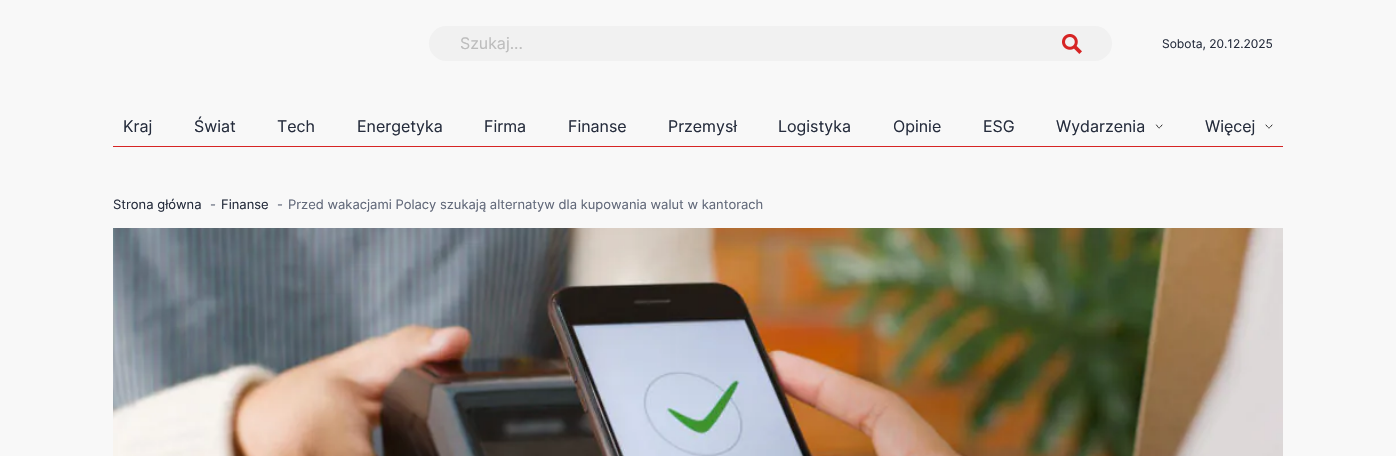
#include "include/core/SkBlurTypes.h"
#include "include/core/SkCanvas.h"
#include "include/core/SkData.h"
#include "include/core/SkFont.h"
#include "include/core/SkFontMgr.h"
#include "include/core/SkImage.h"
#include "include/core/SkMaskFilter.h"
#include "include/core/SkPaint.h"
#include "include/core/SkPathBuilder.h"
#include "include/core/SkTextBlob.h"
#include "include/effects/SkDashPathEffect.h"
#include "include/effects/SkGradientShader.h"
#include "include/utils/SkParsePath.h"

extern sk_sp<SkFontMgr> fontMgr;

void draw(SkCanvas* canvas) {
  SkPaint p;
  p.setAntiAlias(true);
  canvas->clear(SkColorSetRGB(248, 248, 248));
  p.setColor(SkColorSetRGB(241, 241, 241));
  canvas->drawRoundRect(SkRect::MakeLTRB(429, 26, 1112, 61), 17.5f, 17.5f, p);
  canvas->drawImageRect(SkImages::DeferredFromEncodedData(SkData::MakeFromFileName("images/1.png")), SkRect::MakeLTRB(1062, 34, 1082, 54), SkSamplingOptions());
  p.setColor(SkColorSetRGB(214, 36, 36));
  canvas->drawRect(SkRect::MakeLTRB(113, 146, 1283, 147), p);
  p.setStyle(SkPaint::kStroke_Style);
  p.setStrokeWidth(1);
  p.setStrokeCap(SkPaint::kRound_Cap);
  p.setStrokeJoin(SkPaint::kRound_Join);
  p.setColor(SkColorSetRGB(45, 45, 45));
  canvas->drawPath(SkPathBuilder().moveTo(1156.5f, 125).cubicTo(1159.5f, 129, 1158.5f, 129, 1162, 125).detach(), p);
  canvas->drawPath(SkPathBuilder().moveTo(1266, 125).cubicTo(1269.5f, 129, 1268.5f, 129, 1272, 125).detach(), p);
  canvas->drawImageRect(SkImages::DeferredFromEncodedData(SkData::MakeFromFileName("images/2.png")), SkRect::MakeLTRB(113, 228, 1283, 456), SkSamplingOptions());
  SkFont font1(fontMgr->matchFamilyStyle("Inter", SkFontStyle::Normal()), 16);
  font1.setSubpixel(true);
  p.setStyle(SkPaint::kFill_Style);
  p.setColor(SkColorSetRGB(189, 189, 189));
  canvas->drawString("Szukaj...", 460, 49, font1, p);
  SkFont font2(fontMgr->matchFamilyStyle("Inter", SkFontStyle::Normal()), 12);
  font2.setSubpixel(true);
  p.setColor(SkColorSetRGB(38, 45, 61));
  canvas->drawString("Sobota, 20.12.2025", 1162, 48, font2, p);
  canvas->drawString("Kraj", 123, 132, font1, p);
  canvas->drawString("Świat", 194, 132, font1, p);
  canvas->drawString("Tech", 277, 132, font1, p);
  canvas->drawString("Energetyka", 357, 132, font1, p);
  canvas->drawString("Firma", 484, 132, font1, p);
  canvas->drawString("Finanse", 568, 132, font1, p);
  canvas->drawString("Przemysł", 668, 132, font1, p);
  canvas->drawString("Logistyka", 778, 132, font1, p);
  canvas->drawString("Opinie", 893, 132, font1, p);
  canvas->drawString("ESG", 983, 132, font1, p);
  canvas->drawString("Wydarzenia", 1056, 132, font1, p);
  canvas->drawString("Więcej", 1205, 132, font1, p);
  SkFont font3(fontMgr->matchFamilyStyle("Inter", SkFontStyle::Normal()), 13);
  font3.setSubpixel(true);
  canvas->drawString("Strona główna", 113, 209, font3, p);
  p.setColor(SkColorSetRGB(98, 105, 122));
  canvas->drawString("-", 210, 209, font3, p);
  p.setColor(SkColorSetRGB(38, 45, 61));
  canvas->drawString("Finanse", 221, 209, font3, p);
  p.setColor(SkColorSetRGB(98, 105, 122));
  canvas->drawString("-", 277, 209, font3, p);
  canvas->drawString("Przed wakacjami Polacy szukają alternatyw dla kupowania walut w kantorach", 288, 209, font3, p);
}
